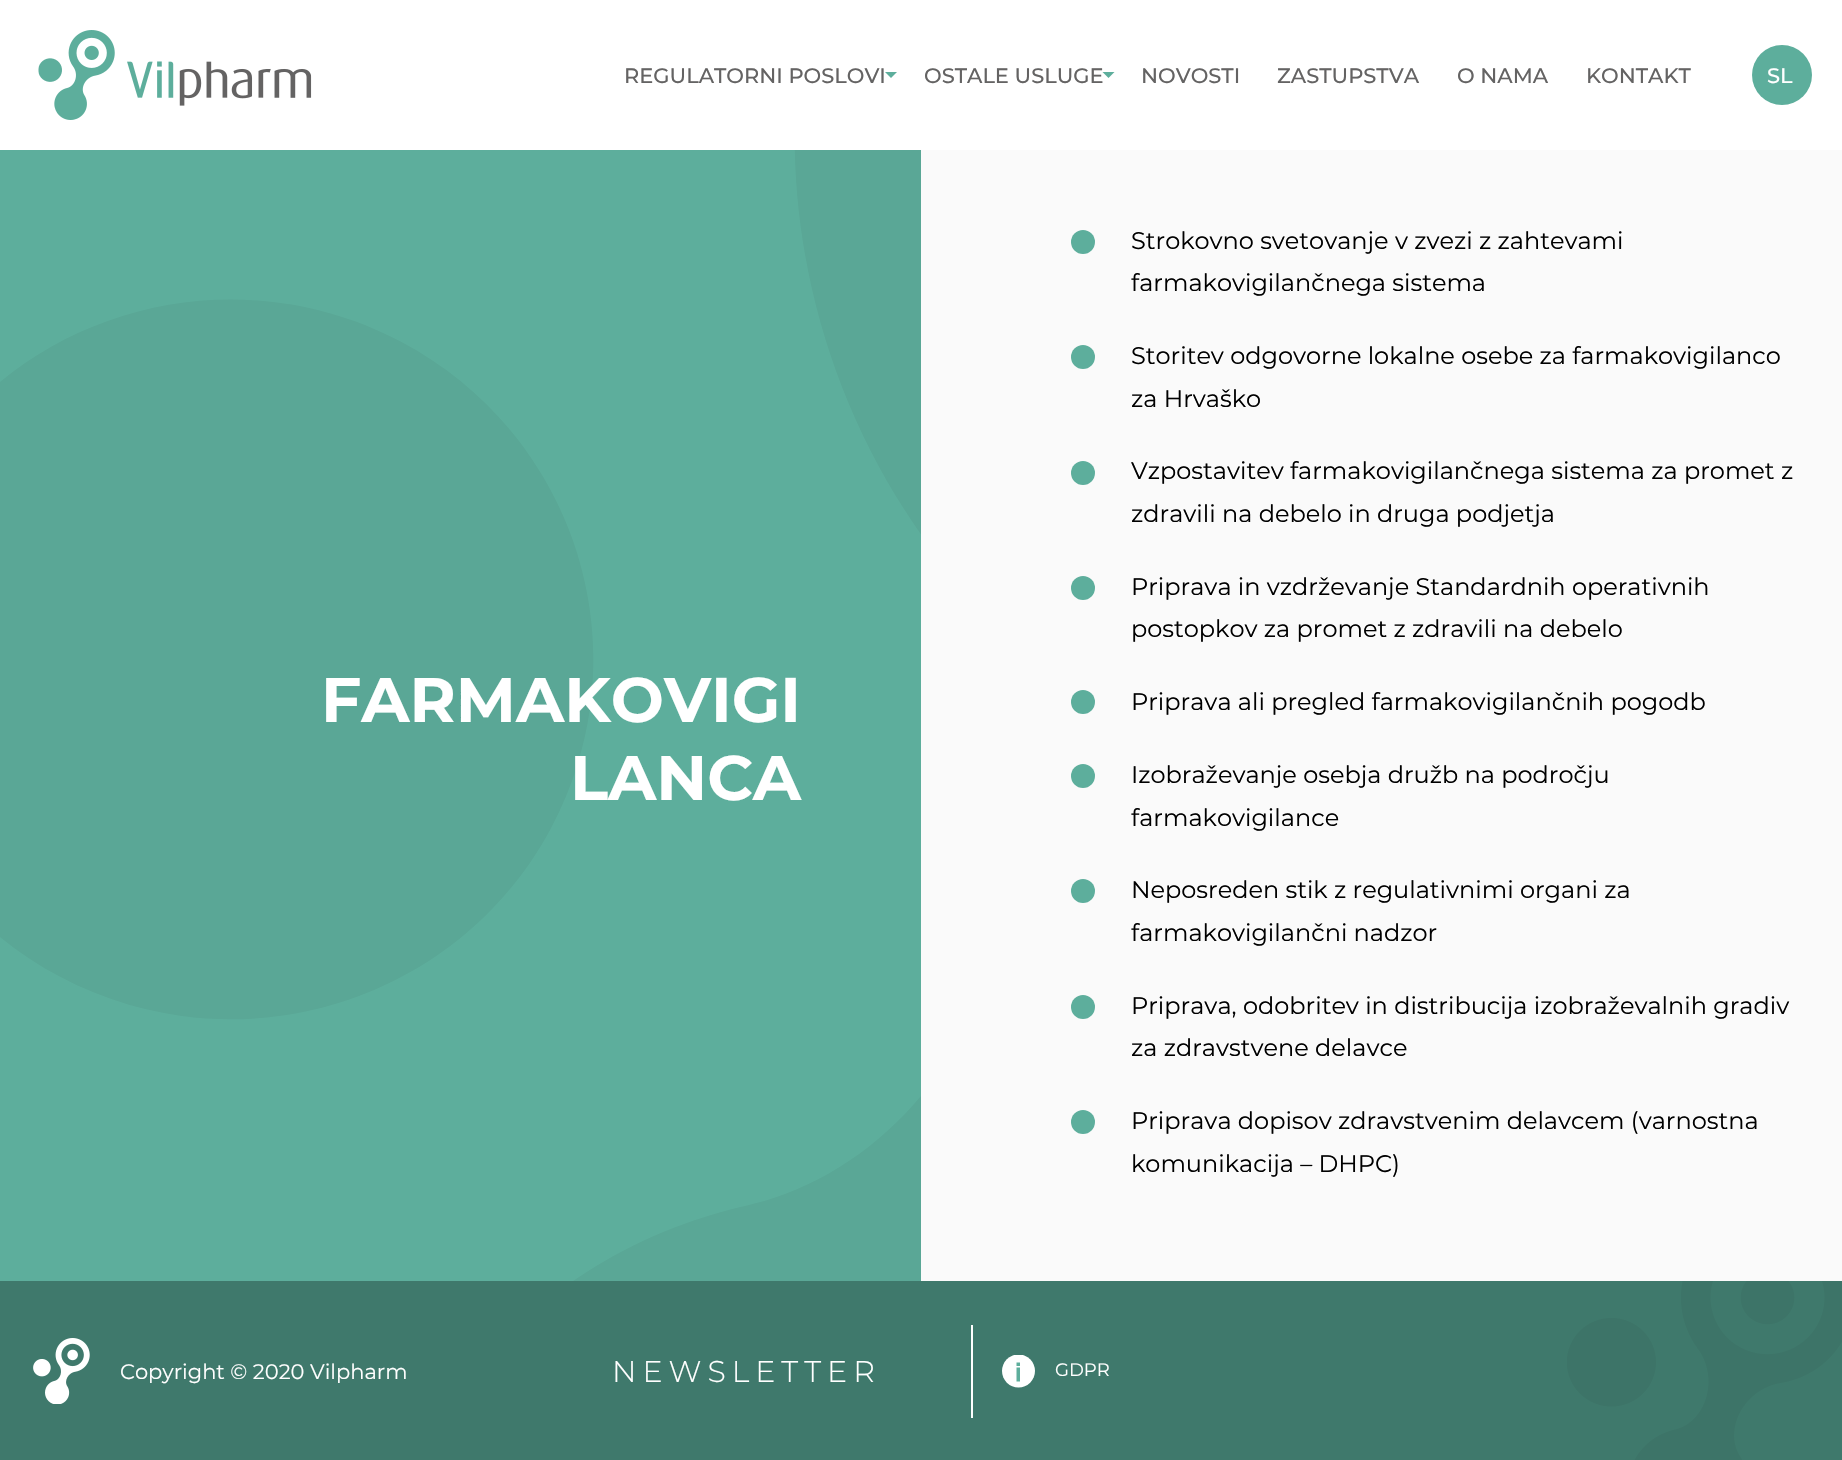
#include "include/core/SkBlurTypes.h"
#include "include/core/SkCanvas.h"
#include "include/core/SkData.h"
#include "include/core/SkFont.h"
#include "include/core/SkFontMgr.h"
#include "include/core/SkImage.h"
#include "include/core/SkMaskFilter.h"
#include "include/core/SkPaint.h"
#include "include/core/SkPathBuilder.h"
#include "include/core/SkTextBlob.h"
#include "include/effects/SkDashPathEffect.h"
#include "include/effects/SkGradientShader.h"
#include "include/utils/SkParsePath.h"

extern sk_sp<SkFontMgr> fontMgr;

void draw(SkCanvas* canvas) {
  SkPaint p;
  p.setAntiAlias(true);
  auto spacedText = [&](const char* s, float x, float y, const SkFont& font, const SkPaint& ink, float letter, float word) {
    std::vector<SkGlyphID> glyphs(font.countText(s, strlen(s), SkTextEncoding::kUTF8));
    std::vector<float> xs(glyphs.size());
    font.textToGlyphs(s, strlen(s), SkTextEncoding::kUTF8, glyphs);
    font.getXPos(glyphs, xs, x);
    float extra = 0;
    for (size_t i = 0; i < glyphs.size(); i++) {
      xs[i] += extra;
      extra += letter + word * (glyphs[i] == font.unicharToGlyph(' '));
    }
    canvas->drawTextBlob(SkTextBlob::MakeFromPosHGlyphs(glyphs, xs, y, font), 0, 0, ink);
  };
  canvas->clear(SkColorSetRGB(250, 250, 250));
  p.setColor(SK_ColorWHITE);
  canvas->drawRect(SkRect::MakeLTRB(0, 0, 1842, 150), p);
  canvas->drawImageRect(SkImages::DeferredFromEncodedData(SkData::MakeFromFileName("images/1.png")), SkRect::MakeLTRB(38, 30, 312, 120), SkSamplingOptions());
  p.setColor(SkColorSetRGB(93, 174, 156));
  canvas->drawPath(SkPathBuilder().moveTo(885, 72).lineTo(897, 72).lineTo(891, 78).close().detach(), p);
  canvas->drawCircle(1782, 75, 30, p);
  canvas->drawRect(SkRect::MakeLTRB(0, 150, 921, 1281), p);
  canvas->drawImageRect(SkImages::DeferredFromEncodedData(SkData::MakeFromFileName("images/2.png")), SkRect::MakeLTRB(0, 150, 921, 1281), SkSamplingOptions());
  canvas->drawCircle(1083, 242, 12, p);
  canvas->drawCircle(1083, 357, 12, p);
  canvas->drawCircle(1083, 473, 12, p);
  canvas->drawCircle(1083, 588, 12, p);
  canvas->drawCircle(1083, 702, 12, p);
  canvas->drawCircle(1083, 776, 12, p);
  canvas->drawCircle(1083, 891, 12, p);
  canvas->drawCircle(1083, 1007, 12, p);
  canvas->drawCircle(1083, 1122, 12, p);
  p.setColor(SkColorSetRGB(63, 121, 108));
  canvas->drawRect(SkRect::MakeLTRB(0, 1281, 1842, 1460), p);
  canvas->drawImageRect(SkImages::DeferredFromEncodedData(SkData::MakeFromFileName("images/3.png")), SkRect::MakeLTRB(33, 1338, 90, 1404), SkSamplingOptions());
  p.setColor(SK_ColorWHITE);
  canvas->drawRect(SkRect::MakeLTRB(971, 1325, 973, 1418), p);
  canvas->save();
  canvas->clipRect(SkRect::MakeLTRB(1002, 1355, 1035, 1388));
  canvas->drawCircle(1018.5f, 1371, 16.5f, p);
  canvas->restore();
  p.setColor(SkColorSetRGB(93, 174, 156));
  canvas->drawPath(SkPathBuilder().moveTo(1016.5f, 1366).lineTo(1016.5f, 1362.5f).lineTo(1020, 1362.5f).lineTo(1020, 1366).close().moveTo(1016.5f, 1381.5f).lineTo(1016.5f, 1367.5f).lineTo(1020, 1367.5f).lineTo(1020, 1381.5f).close().detach(), p);
  canvas->drawImageRect(SkImages::DeferredFromEncodedData(SkData::MakeFromFileName("images/4.png")), SkRect::MakeLTRB(1567, 1281, 1842, 1460), SkSamplingOptions());
  SkFont font1(fontMgr->matchFamilyStyle("Montserrat", SkFontStyle(500, SkFontStyle::kNormal_Width, SkFontStyle::kUpright_Slant)), 21);
  font1.setSubpixel(true);
  p.setColor(SkColorSetRGB(100, 99, 99));
  canvas->drawString("REGULATORNI POSLOVI", 624, 83, font1, p);
  canvas->drawString("OSTALE USLUGE", 924, 83, font1, p);
  p.setColor(SkColorSetRGB(93, 174, 156));
  canvas->drawPath(SkPathBuilder().moveTo(1102.5f, 72).lineTo(1114.5f, 72).lineTo(1108.5f, 78).close().detach(), p);
  p.setColor(SkColorSetRGB(100, 99, 99));
  canvas->drawString("NOVOSTI", 1141, 83, font1, p);
  canvas->drawString("ZASTUPSTVA", 1277, 83, font1, p);
  canvas->drawString("O NAMA", 1457, 83, font1, p);
  canvas->drawString("KONTAKT", 1586, 83, font1, p);
  p.setColor(SK_ColorWHITE);
  canvas->drawString("SL", 1767, 83, font1, p);
  SkFont font2(fontMgr->matchFamilyStyle("Montserrat", SkFontStyle::Bold()), 63);
  font2.setSubpixel(true);
  canvas->drawString("FARMAKOVIGI", 321, 722, font2, p);
  canvas->drawString("LANCA", 570, 800, font2, p);
  SkFont font3(fontMgr->matchFamilyStyle("Montserrat", SkFontStyle::Normal()), 24);
  font3.setSubpixel(true);
  p.setColor(SK_ColorBLACK);
  canvas->drawString("Strokovno svetovanje v zvezi z zahtevami", 1131, 249, font3, p);
  canvas->drawString("farmakovigilančnega sistema", 1131, 291, font3, p);
  canvas->drawString("Storitev odgovorne lokalne osebe za farmakovigilanco", 1131, 364, font3, p);
  canvas->drawString("za Hrvaško", 1131, 407, font3, p);
  canvas->drawString("Vzpostavitev farmakovigilančnega sistema za promet z", 1131, 479, font3, p);
  canvas->drawString("zdravili na debelo in druga podjetja", 1131, 522, font3, p);
  canvas->drawString("Priprava in vzdrževanje Standardnih operativnih", 1131, 595, font3, p);
  canvas->drawString("postopkov za promet z zdravili na debelo", 1131, 637, font3, p);
  canvas->drawString("Priprava ali pregled farmakovigilančnih pogodb", 1131, 710, font3, p);
  canvas->drawString("Izobraževanje osebja družb na področju", 1131, 783, font3, p);
  canvas->drawString("farmakovigilance", 1131, 826, font3, p);
  canvas->drawString("Neposreden stik z regulativnimi organi za", 1131, 898, font3, p);
  canvas->drawString("farmakovigilančni nadzor", 1131, 941, font3, p);
  canvas->drawString("Priprava, odobritev in distribucija izobraževalnih gradiv", 1131, 1014, font3, p);
  canvas->drawString("za zdravstvene delavce", 1131, 1056, font3, p);
  canvas->drawString("Priprava dopisov zdravstvenim delavcem (varnostna", 1131, 1129, font3, p);
  canvas->drawString("komunikacija – DHPC)", 1131, 1172, font3, p);
  SkFont font4(fontMgr->matchFamilyStyle("Montserrat", SkFontStyle::Normal()), 21);
  font4.setSubpixel(true);
  p.setColor(SK_ColorWHITE);
  canvas->drawString("Copyright © 2020 Vilpharm", 120, 1379, font4, p);
  SkFont font5(fontMgr->matchFamilyStyle("Montserrat", SkFontStyle(300, SkFontStyle::kNormal_Width, SkFontStyle::kUpright_Slant)), 30);
  font5.setSubpixel(true);
  spacedText("NEWSLETTER", 612, 1382, font5, p, 6, 0);
  SkFont font6(fontMgr->matchFamilyStyle("Montserrat", SkFontStyle::Normal()), 18);
  font6.setSubpixel(true);
  canvas->drawString("GDPR", 1055, 1376, font6, p);
}
